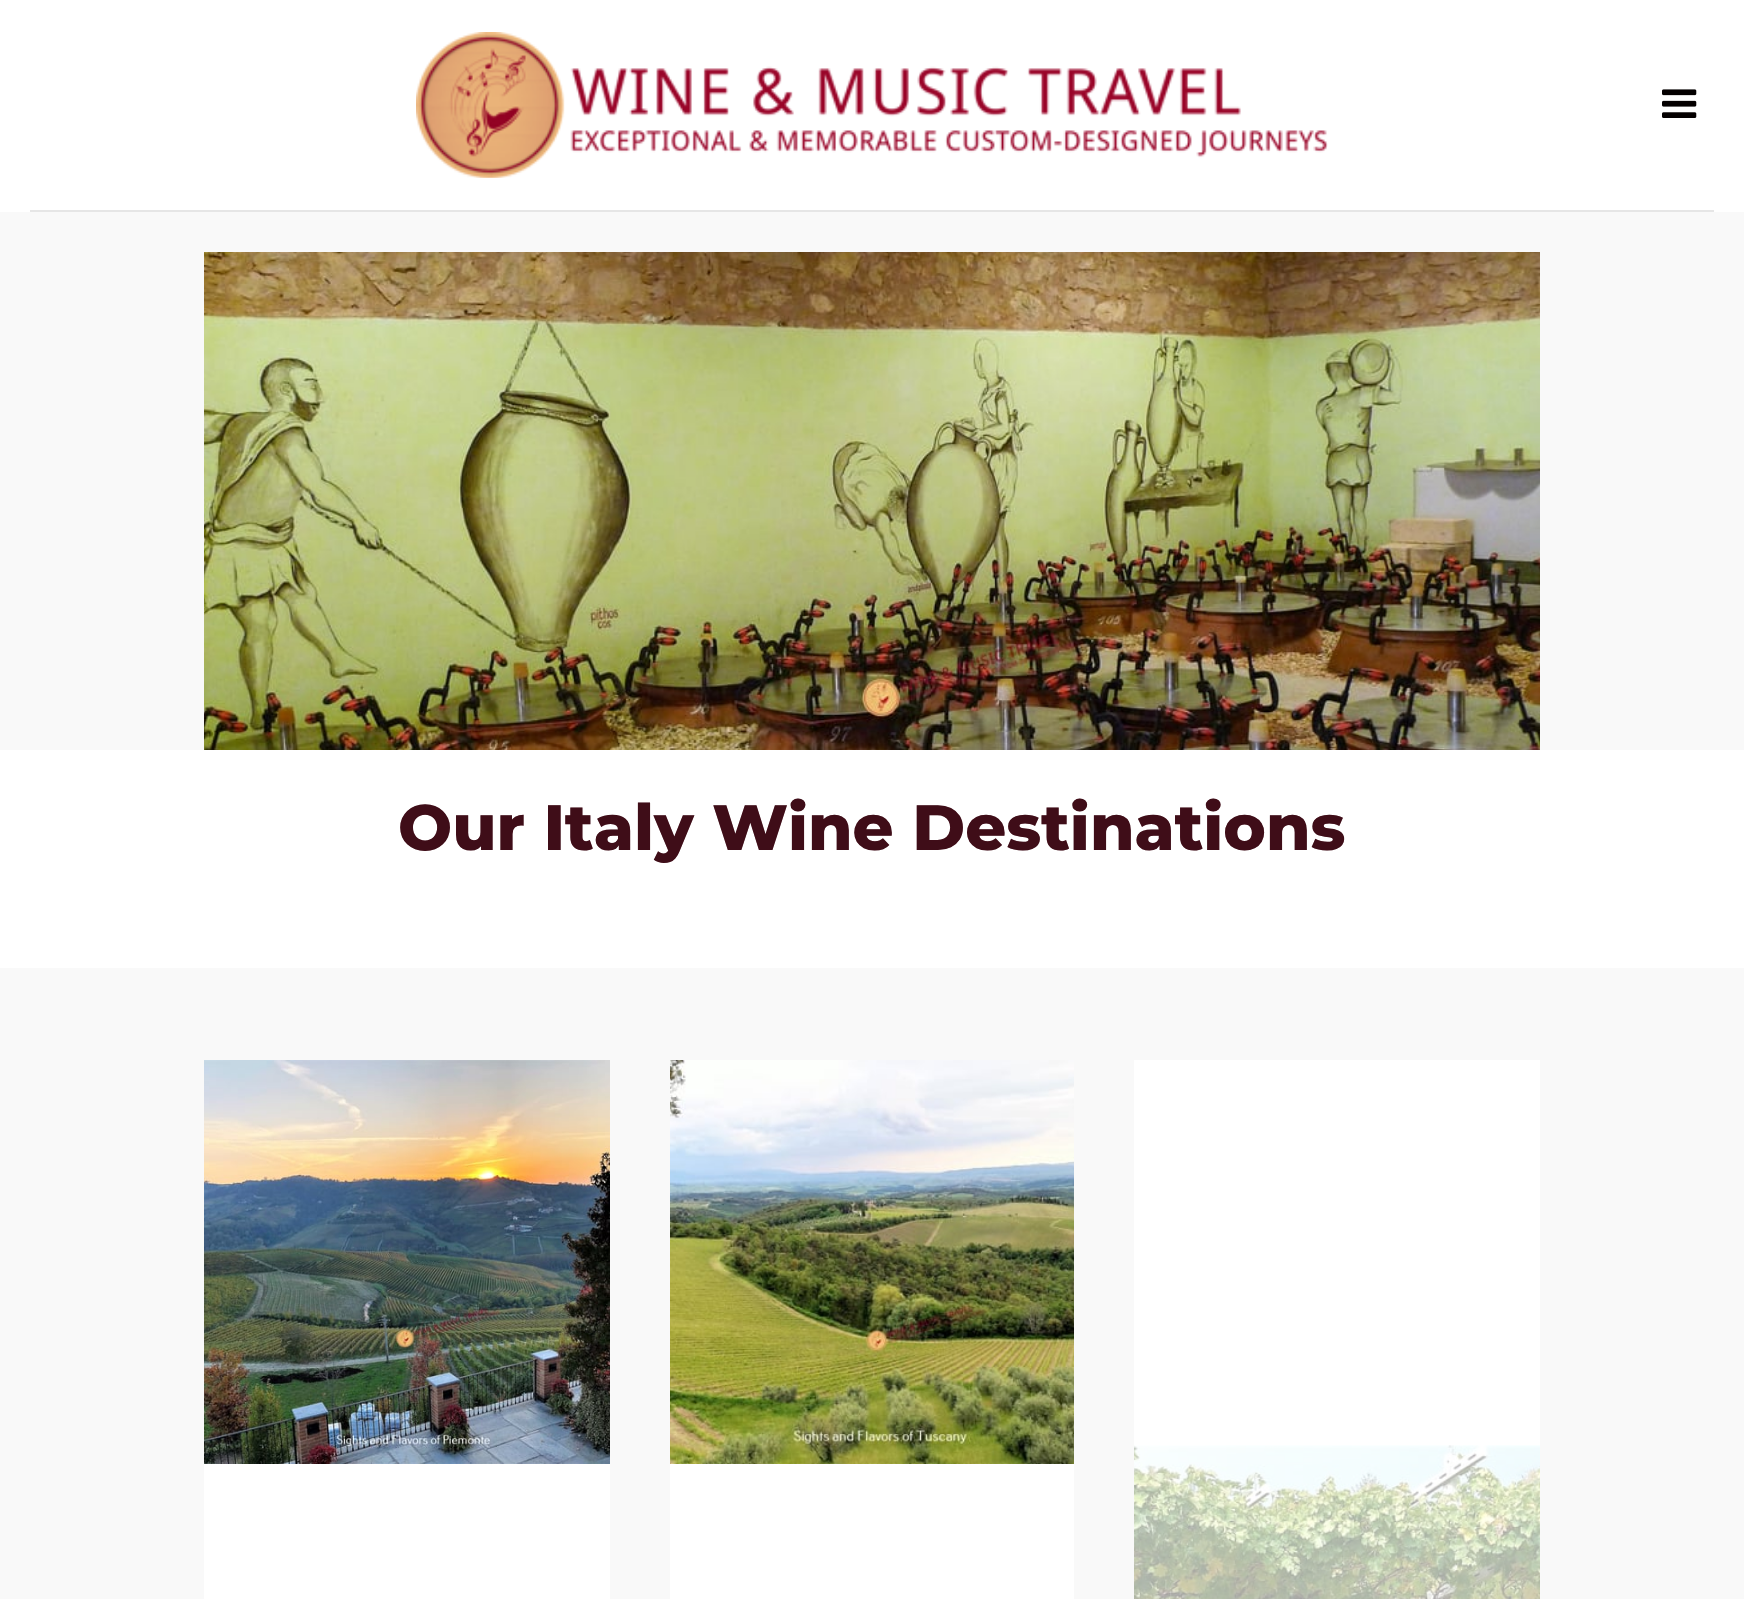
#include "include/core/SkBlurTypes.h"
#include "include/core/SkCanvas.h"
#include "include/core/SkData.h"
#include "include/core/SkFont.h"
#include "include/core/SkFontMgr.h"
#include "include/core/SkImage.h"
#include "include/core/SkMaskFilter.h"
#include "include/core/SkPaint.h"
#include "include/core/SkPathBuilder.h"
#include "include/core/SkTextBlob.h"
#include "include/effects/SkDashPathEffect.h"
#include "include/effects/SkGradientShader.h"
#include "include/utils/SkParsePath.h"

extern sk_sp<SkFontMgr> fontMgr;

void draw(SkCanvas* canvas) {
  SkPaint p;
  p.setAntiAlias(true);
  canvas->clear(SK_ColorWHITE);
  canvas->drawImageRect(SkImages::DeferredFromEncodedData(SkData::MakeFromFileName("images/1.png")), SkRect::MakeLTRB(416, 32, 1328, 178), SkSamplingOptions());
  canvas->drawImageRect(SkImages::DeferredFromEncodedData(SkData::MakeFromFileName("images/2.png")), SkRect::MakeLTRB(1662, 89, 1697, 118), SkSamplingOptions());
  p.setColor(SkColorSetRGB(230, 230, 230));
  canvas->drawRect(SkRect::MakeLTRB(30, 210, 1714, 212), p);
  p.setColor(SkColorSetRGB(249, 249, 249));
  canvas->drawRect(SkRect::MakeLTRB(0, 212, 1744, 750), p);
  canvas->drawImageRect(SkImages::DeferredFromEncodedData(SkData::MakeFromFileName("images/3.png")), SkRect::MakeLTRB(204, 252, 1540, 750), SkSamplingOptions());
  canvas->drawRect(SkRect::MakeLTRB(0, 968, 1744, 1599), p);
  p.setColor(SK_ColorWHITE);
  canvas->drawRect(SkRect::MakeLTRB(204, 1464, 610, 1599), p);
  canvas->drawImageRect(SkImages::DeferredFromEncodedData(SkData::MakeFromFileName("images/4.png")), SkRect::MakeLTRB(204, 1060, 610, 1464), SkSamplingOptions());
  canvas->drawRect(SkRect::MakeLTRB(670, 1464, 1074, 1599), p);
  canvas->drawImageRect(SkImages::DeferredFromEncodedData(SkData::MakeFromFileName("images/5.png")), SkRect::MakeLTRB(670, 1060, 1074, 1464), SkSamplingOptions());
  canvas->drawRect(SkRect::MakeLTRB(1134, 1060, 1540, 1599), p);
  canvas->drawImageRect(SkImages::DeferredFromEncodedData(SkData::MakeFromFileName("images/6.png")), SkRect::MakeLTRB(1134, 1445, 1540, 1599), SkSamplingOptions());
  SkFont font1(fontMgr->matchFamilyStyle("Montserrat", SkFontStyle(100, SkFontStyle::kNormal_Width, SkFontStyle::kUpright_Slant)), 64);
  font1.setSubpixel(true);
  p.setColor(SkColorSetRGB(63, 13, 24));
  canvas->drawString("Our Italy Wine Destinations", 398, 850, font1, p);
}
